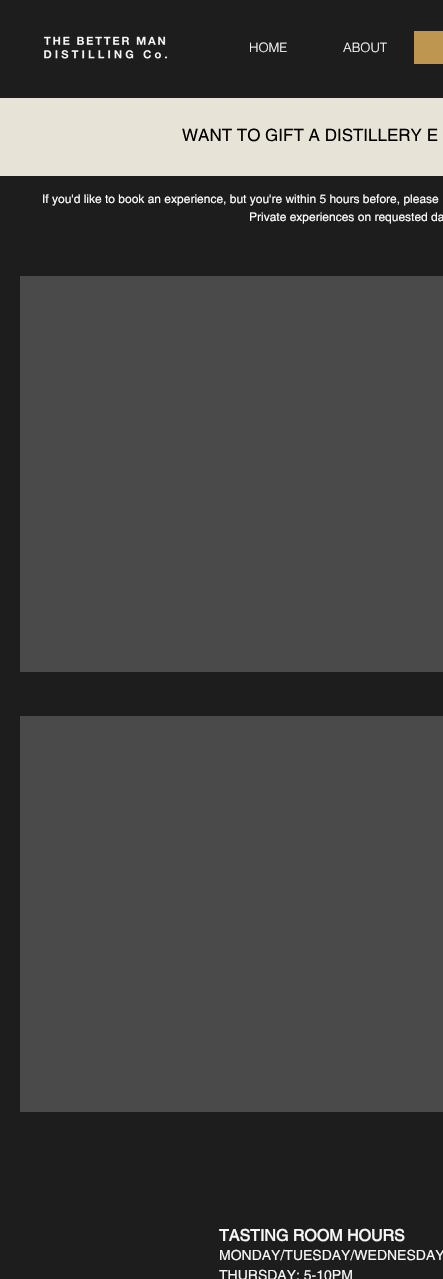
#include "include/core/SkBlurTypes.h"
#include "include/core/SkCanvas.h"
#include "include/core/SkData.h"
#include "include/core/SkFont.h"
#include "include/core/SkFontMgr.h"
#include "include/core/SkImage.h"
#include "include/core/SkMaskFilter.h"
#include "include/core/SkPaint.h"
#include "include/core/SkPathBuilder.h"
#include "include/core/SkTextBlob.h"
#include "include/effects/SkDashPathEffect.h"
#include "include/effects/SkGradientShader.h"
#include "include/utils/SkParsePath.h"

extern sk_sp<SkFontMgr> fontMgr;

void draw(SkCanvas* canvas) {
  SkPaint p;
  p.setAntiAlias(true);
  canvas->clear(SkColorSetRGB(29, 29, 29));
  canvas->drawImageRect(SkImages::DeferredFromEncodedData(SkData::MakeFromFileName("images/1.png")), SkRect::MakeLTRB(43, 36, 168, 59), SkSamplingOptions());
  p.setColor(SkColorSetRGB(191, 150, 79));
  canvas->drawRect(SkRect::MakeLTRB(414, 31, 443, 64), p);
  p.setColor(SkColorSetRGB(232, 227, 215));
  canvas->drawRect(SkRect::MakeLTRB(0, 98, 443, 176), p);
  p.setStyle(SkPaint::kStroke_Style);
  p.setStrokeWidth(1);
  p.setColor(SkColorSetRGB(74, 74, 74));
  canvas->drawRect(SkRect::MakeLTRB(20.5f, 276.5f, 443.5f, 671.5f), p);
  p.setStyle(SkPaint::kFill_Style);
  canvas->drawRect(SkRect::MakeLTRB(21, 277, 443, 671), p);
  p.setStyle(SkPaint::kStroke_Style);
  canvas->drawRect(SkRect::MakeLTRB(20.5f, 716.5f, 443.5f, 1111.5f), p);
  p.setStyle(SkPaint::kFill_Style);
  canvas->drawRect(SkRect::MakeLTRB(21, 717, 443, 1111), p);
  SkFont font1(fontMgr->matchFamilyStyle("helvetica", SkFontStyle(300, SkFontStyle::kNormal_Width, SkFontStyle::kUpright_Slant)), 13);
  font1.setSubpixel(true);
  p.setColor(SK_ColorWHITE);
  canvas->drawString("HOME", 249, 52, font1, p);
  canvas->drawString("ABOUT", 343, 52, font1, p);
  SkFont font2(fontMgr->matchFamilyStyle("helvetica", SkFontStyle::Normal()), 17);
  font2.setSubpixel(true);
  p.setColor(SK_ColorBLACK);
  canvas->drawString("WANT TO GIFT A DISTILLERY E", 182, 141, font2, p);
  SkFont font3(fontMgr->matchFamilyStyle("helvetica", SkFontStyle::Normal()), 12);
  font3.setSubpixel(true);
  p.setColor(SK_ColorWHITE);
  canvas->drawString("If you'd like to book an experience, but you're within 5 hours before, please", 42, 203, font3, p);
  canvas->drawString("Private experiences on requested da", 249, 221, font3, p);
  SkFont font4(fontMgr->matchFamilyStyle("helvetica", SkFontStyle::Bold()), 16);
  font4.setSubpixel(true);
  p.setColor(SkColorSetRGB(248, 247, 246));
  canvas->drawString("TASTING ROOM HOURS", 219, 1241, font4, p);
  SkFont font5(fontMgr->matchFamilyStyle("helvetica", SkFontStyle::Normal()), 14);
  font5.setSubpixel(true);
  canvas->drawString("MONDAY/TUESDAY/WEDNESDAY", 219, 1260, font5, p);
  canvas->drawString("THURSDAY: 5-10PM", 219, 1280, font5, p);
}
